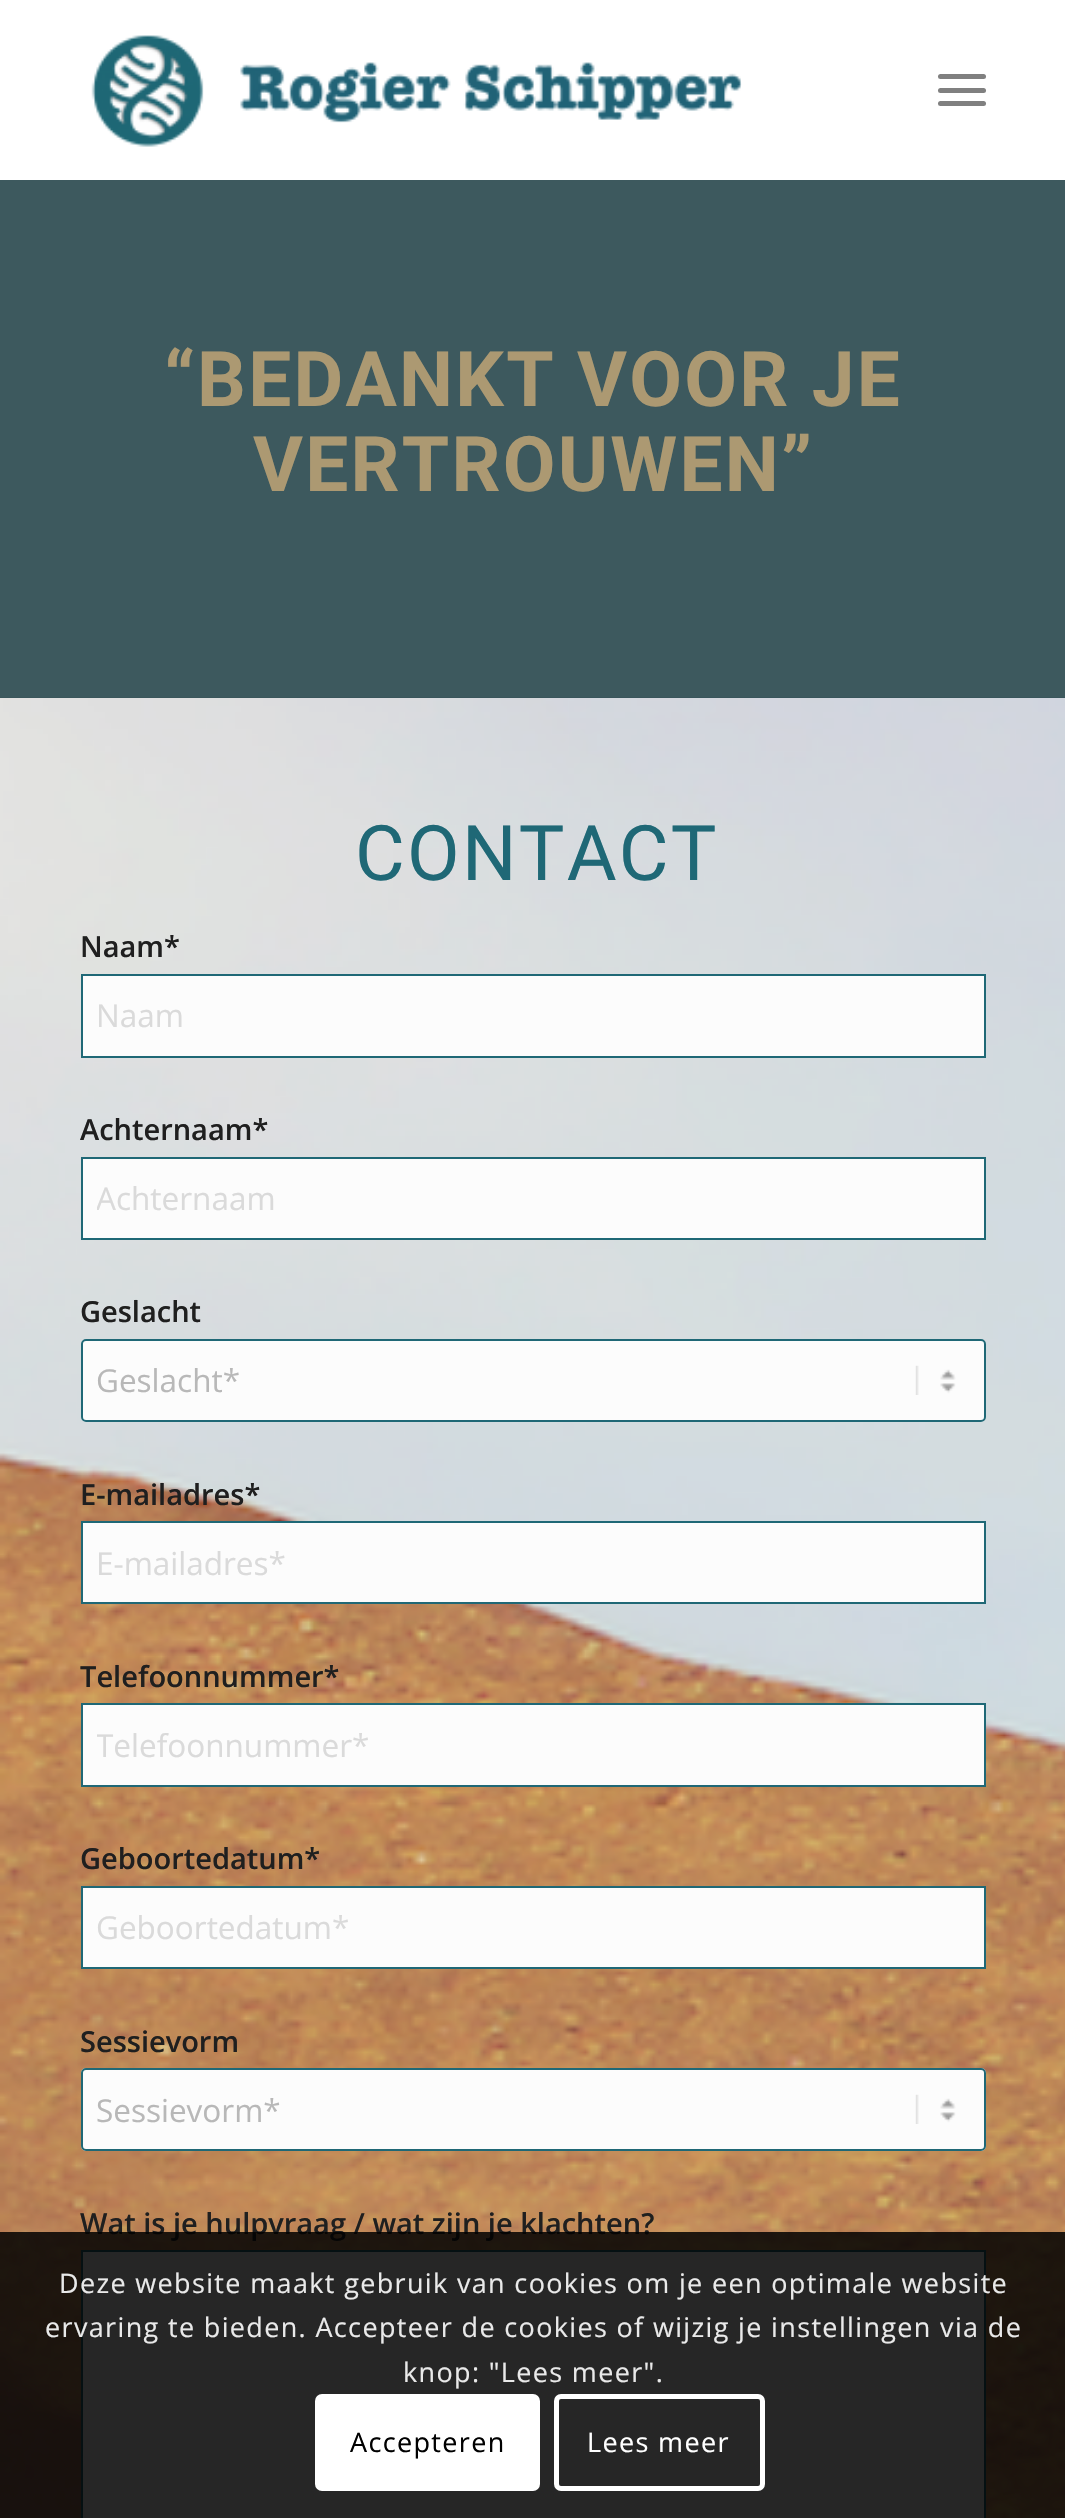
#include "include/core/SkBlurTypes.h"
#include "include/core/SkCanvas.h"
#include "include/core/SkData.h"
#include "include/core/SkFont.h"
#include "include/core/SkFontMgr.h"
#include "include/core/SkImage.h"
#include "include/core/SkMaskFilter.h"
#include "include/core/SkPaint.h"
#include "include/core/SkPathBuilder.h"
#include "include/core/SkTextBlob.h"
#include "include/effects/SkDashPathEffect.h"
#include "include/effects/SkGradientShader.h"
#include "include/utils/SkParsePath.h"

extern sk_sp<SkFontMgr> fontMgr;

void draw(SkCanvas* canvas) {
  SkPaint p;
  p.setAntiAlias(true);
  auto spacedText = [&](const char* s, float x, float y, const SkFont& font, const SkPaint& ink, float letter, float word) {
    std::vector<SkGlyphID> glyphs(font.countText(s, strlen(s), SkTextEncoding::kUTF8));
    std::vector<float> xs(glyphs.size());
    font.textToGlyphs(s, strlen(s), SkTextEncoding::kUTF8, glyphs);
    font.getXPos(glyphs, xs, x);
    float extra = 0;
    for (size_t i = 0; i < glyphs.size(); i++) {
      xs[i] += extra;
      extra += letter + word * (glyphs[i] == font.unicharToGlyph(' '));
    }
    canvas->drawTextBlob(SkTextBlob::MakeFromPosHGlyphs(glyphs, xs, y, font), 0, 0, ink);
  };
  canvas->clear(SK_ColorWHITE);
  canvas->drawImageRect(SkImages::DeferredFromEncodedData(SkData::MakeFromFileName("images/1.png")), SkRect::MakeLTRB(91, 35, 742, 147), SkSamplingOptions());
  p.setColor(SkColorSetRGB(128, 128, 128));
  canvas->drawRoundRect(SkRect::MakeLTRB(938, 88, 986, 93), 2.5f, 2.5f, p);
  canvas->drawRoundRect(SkRect::MakeLTRB(938, 74, 986, 79), 2.5f, 2.5f, p);
  canvas->drawRoundRect(SkRect::MakeLTRB(938, 101, 986, 106), 2.5f, 2.5f, p);
  canvas->drawImageRect(SkImages::DeferredFromEncodedData(SkData::MakeFromFileName("images/2.png")), SkRect::MakeLTRB(0, 697, 1065, 2518), SkSamplingOptions());
  p.setColor(SkColorSetARGB(204, 13, 48, 54));
  canvas->drawRect(SkRect::MakeLTRB(0, 180, 1065, 698), p);
  p.setColor(SkColorSetRGB(252, 252, 252));
  canvas->drawRect(SkRect::MakeLTRB(82, 975, 985, 1057), p);
  p.setStyle(SkPaint::kStroke_Style);
  p.setStrokeWidth(2);
  p.setColor(SkColorSetRGB(31, 104, 118));
  canvas->drawRect(SkRect::MakeLTRB(82, 975, 985, 1057), p);
  p.setStyle(SkPaint::kFill_Style);
  p.setColor(SkColorSetRGB(252, 252, 252));
  canvas->drawRect(SkRect::MakeLTRB(82, 1158, 985, 1239), p);
  p.setStyle(SkPaint::kStroke_Style);
  p.setColor(SkColorSetRGB(31, 104, 118));
  canvas->drawRect(SkRect::MakeLTRB(82, 1158, 985, 1239), p);
  p.setStyle(SkPaint::kFill_Style);
  p.setColor(SkColorSetRGB(252, 252, 252));
  canvas->drawRoundRect(SkRect::MakeLTRB(81, 1339, 986, 1422), 5, 5, p);
  canvas->drawImageRect(SkImages::DeferredFromEncodedData(SkData::MakeFromFileName("images/3.png")), SkRect::MakeLTRB(915, 1365, 956, 1395), SkSamplingOptions());
  p.setStyle(SkPaint::kStroke_Style);
  p.setColor(SkColorSetRGB(31, 104, 118));
  canvas->drawRoundRect(SkRect::MakeLTRB(82, 1340, 985, 1421), 4, 4, p);
  p.setStyle(SkPaint::kFill_Style);
  p.setColor(SkColorSetRGB(252, 252, 252));
  canvas->drawRect(SkRect::MakeLTRB(82, 1522, 985, 1603), p);
  p.setStyle(SkPaint::kStroke_Style);
  p.setColor(SkColorSetRGB(31, 104, 118));
  canvas->drawRect(SkRect::MakeLTRB(82, 1522, 985, 1603), p);
  p.setStyle(SkPaint::kFill_Style);
  p.setColor(SkColorSetRGB(252, 252, 252));
  canvas->drawRect(SkRect::MakeLTRB(82, 1704, 985, 1786), p);
  p.setStyle(SkPaint::kStroke_Style);
  p.setColor(SkColorSetRGB(31, 104, 118));
  canvas->drawRect(SkRect::MakeLTRB(82, 1704, 985, 1786), p);
  p.setStyle(SkPaint::kFill_Style);
  p.setColor(SkColorSetRGB(252, 252, 252));
  canvas->drawRect(SkRect::MakeLTRB(82, 1887, 985, 1968), p);
  p.setStyle(SkPaint::kStroke_Style);
  p.setColor(SkColorSetRGB(31, 104, 118));
  canvas->drawRect(SkRect::MakeLTRB(82, 1887, 985, 1968), p);
  p.setStyle(SkPaint::kFill_Style);
  p.setColor(SkColorSetRGB(252, 252, 252));
  canvas->drawRoundRect(SkRect::MakeLTRB(81, 2068, 986, 2151), 5, 5, p);
  canvas->drawImageRect(SkImages::DeferredFromEncodedData(SkData::MakeFromFileName("images/3.png")), SkRect::MakeLTRB(915, 2094, 956, 2124), SkSamplingOptions());
  p.setStyle(SkPaint::kStroke_Style);
  p.setColor(SkColorSetRGB(31, 104, 118));
  canvas->drawRoundRect(SkRect::MakeLTRB(82, 2069, 985, 2150), 4, 4, p);
  p.setStyle(SkPaint::kFill_Style);
  p.setColor(SkColorSetRGB(252, 252, 252));
  canvas->drawRect(SkRect::MakeLTRB(82, 2251, 985, 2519), p);
  p.setStyle(SkPaint::kStroke_Style);
  p.setColor(SkColorSetRGB(31, 104, 118));
  canvas->drawRect(SkRect::MakeLTRB(82, 2251, 985, 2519), p);
  SkFont font1(fontMgr->matchFamilyStyle("Roboto", SkFontStyle::Bold()), 76.5f);
  font1.setSubpixel(true);
  p.setStyle(SkPaint::kFill_Style);
  p.setColor(SkColorSetRGB(172, 153, 114));
  spacedText("“BEDANKT VOOR JE", 164, 406, font1, p, 2.25f, 0);
  spacedText("VERTROUWEN”", 253, 491, font1, p, 2.25f, 0);
  SkFont font2(fontMgr->matchFamilyStyle("Roboto", SkFontStyle::Normal()), 76.5f);
  font2.setSubpixel(true);
  p.setColor(SkColorSetRGB(31, 104, 118));
  spacedText("CONTACT", 355, 880, font2, p, 2.25f, 0);
  SkFont font3(fontMgr->matchFamilyStyle("Open Sans", SkFontStyle(600, SkFontStyle::kNormal_Width, SkFontStyle::kUpright_Slant)), 29);
  font3.setSubpixel(true);
  p.setColor(SkColorSetRGB(31, 31, 31));
  canvas->drawString("Naam*", 80, 957, font3, p);
  SkFont font4(fontMgr->matchFamilyStyle("Open Sans", SkFontStyle::Normal()), 31.5f);
  font4.setSubpixel(true);
  p.setColor(SkColorSetRGB(218, 218, 218));
  canvas->drawString("Naam", 96, 1027, font4, p);
  p.setColor(SkColorSetRGB(31, 31, 31));
  canvas->drawString("Achternaam*", 80, 1140, font3, p);
  canvas->save();
  canvas->clipRect(SkRect::MakeLTRB(97, 1177, 970, 1220));
  p.setColor(SkColorSetRGB(218, 218, 218));
  canvas->drawString("Achternaam", 96, 1210, font4, p);
  canvas->restore();
  p.setColor(SkColorSetRGB(31, 31, 31));
  canvas->drawString("Geslacht", 80, 1322, font3, p);
  p.setColor(SkColorSetRGB(184, 184, 184));
  canvas->drawString("Geslacht*", 96, 1392, font4, p);
  p.setColor(SkColorSetRGB(31, 31, 31));
  canvas->drawString("E-mailadres*", 80, 1505, font3, p);
  p.setColor(SkColorSetRGB(218, 218, 218));
  canvas->drawString("E-mailadres*", 96, 1575, font4, p);
  p.setColor(SkColorSetRGB(31, 31, 31));
  canvas->drawString("Telefoonnummer*", 80, 1687, font3, p);
  canvas->save();
  canvas->clipRect(SkRect::MakeLTRB(97, 1724, 970, 1766));
  p.setColor(SkColorSetRGB(218, 218, 218));
  canvas->drawString("Telefoonnummer*", 96, 1757, font4, p);
  canvas->restore();
  p.setColor(SkColorSetRGB(31, 31, 31));
  canvas->drawString("Geboortedatum*", 80, 1869, font3, p);
  p.setColor(SkColorSetRGB(218, 218, 218));
  canvas->drawString("Geboortedatum*", 96, 1939, font4, p);
  p.setColor(SkColorSetRGB(31, 31, 31));
  canvas->drawString("Sessievorm", 80, 2052, font3, p);
  p.setColor(SkColorSetRGB(184, 184, 184));
  canvas->drawString("Sessievorm*", 96, 2122, font4, p);
  p.setColor(SkColorSetRGB(31, 31, 31));
  canvas->drawString("Wat is je hulpvraag / wat zijn je klachten?", 80, 2234, font3, p);
  p.setColor(SkColorSetARGB(217, 0, 0, 0));
  canvas->drawRect(SkRect::MakeLTRB(0, 2232, 1065, 2518), p);
  SkFont font5(fontMgr->matchFamilyStyle("Open Sans", SkFontStyle::Normal()), 27);
  font5.setSubpixel(true);
  p.setColor(SkColorSetRGB(233, 233, 233));
  spacedText("Deze website maakt gebruik van cookies om je een optimale website", 59, 2293, font5, p, 1.35f, 0);
  spacedText("ervaring te bieden. Accepteer de cookies of wijzig je instellingen via de", 45, 2337, font5, p, 1.35f, 0);
  spacedText("knop: \"Lees meer\".", 403, 2382, font5, p, 1.35f, 0);
  p.setColor(SK_ColorWHITE);
  canvas->drawRoundRect(SkRect::MakeLTRB(315, 2394, 540, 2491), 7, 7, p);
  p.setColor(SK_ColorBLACK);
  spacedText("Accepteren", 350, 2452, font5, p, 1.35f, 0);
  p.setStyle(SkPaint::kStroke_Style);
  p.setStrokeWidth(5);
  p.setColor(SK_ColorWHITE);
  canvas->drawRoundRect(SkRect::MakeLTRB(556.5f, 2396.5f, 762.5f, 2488.5f), 4.5f, 4.5f, p);
  p.setStyle(SkPaint::kFill_Style);
  spacedText("Lees meer", 587, 2452, font5, p, 1.35f, 0);
}
